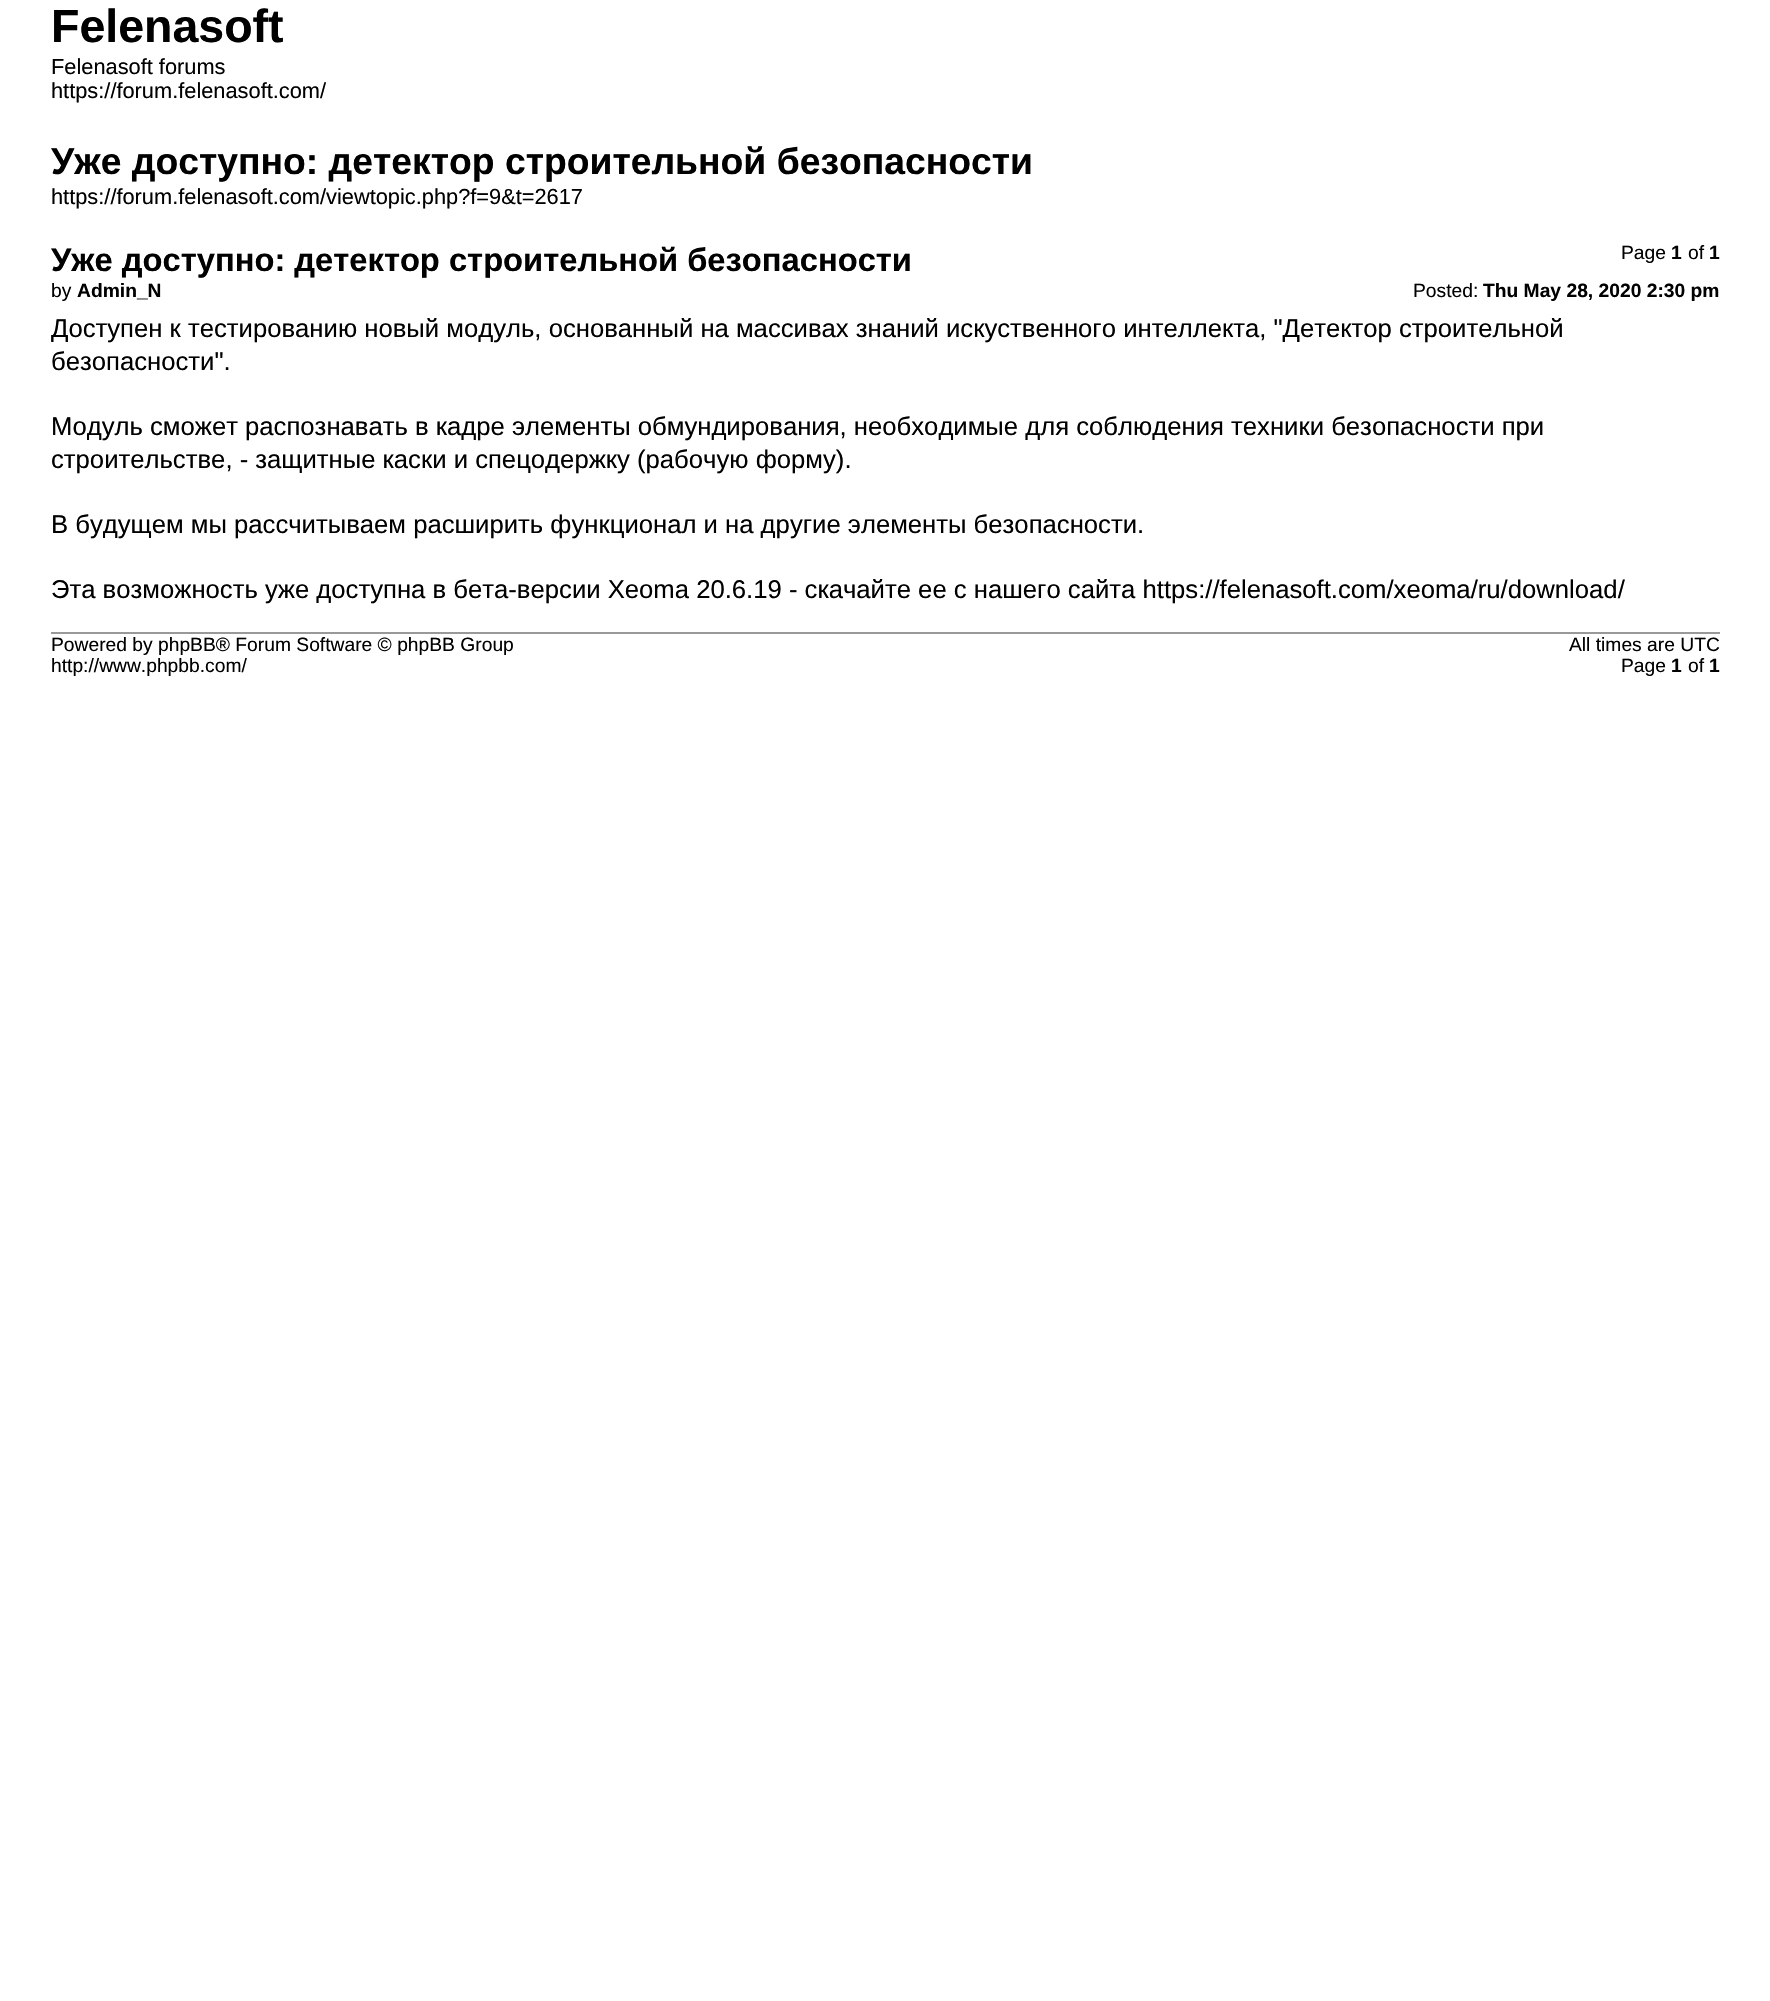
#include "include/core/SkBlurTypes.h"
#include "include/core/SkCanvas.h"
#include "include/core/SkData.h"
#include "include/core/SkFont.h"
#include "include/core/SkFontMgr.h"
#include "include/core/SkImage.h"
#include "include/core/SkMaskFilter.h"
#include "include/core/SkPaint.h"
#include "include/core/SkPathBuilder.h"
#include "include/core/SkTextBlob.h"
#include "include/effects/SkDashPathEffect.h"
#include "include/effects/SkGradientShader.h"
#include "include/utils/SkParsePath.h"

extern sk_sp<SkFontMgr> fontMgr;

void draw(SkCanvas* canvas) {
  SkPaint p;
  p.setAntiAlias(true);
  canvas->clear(SK_ColorWHITE);
  p.setColor(SkColorSetRGB(153, 153, 153));
  canvas->drawRect(SkRect::MakeLTRB(51, 632, 1720, 634), p);
  SkFont font1(fontMgr->matchFamilyStyle("Liberation Sans", SkFontStyle::Bold()), 46.5f);
  font1.setSubpixel(true);
  p.setColor(SK_ColorBLACK);
  canvas->drawString("Felenasoft", 51, 42, font1, p);
  SkFont font2(fontMgr->matchFamilyStyle("Liberation Sans", SkFontStyle::Normal()), 21.8f);
  font2.setSubpixel(true);
  canvas->drawString("Felenasoft forums", 51, 74, font2, p);
  canvas->drawString("https://forum.felenasoft.com/", 51, 98, font2, p);
  SkFont font3(fontMgr->matchFamilyStyle("Liberation Sans", SkFontStyle::Bold()), 37.3f);
  font3.setSubpixel(true);
  canvas->drawString("Уже доступно: детектор строительной безопасности", 51, 174, font3, p);
  canvas->drawString("https://forum.felenasoft.com/viewtopic.php?f=9&t=2617", 51, 204, font2, p);
  SkFont font4(fontMgr->matchFamilyStyle("Liberation Sans", SkFontStyle::Normal()), 19.25f);
  font4.setSubpixel(true);
  canvas->drawString("Page", 1621, 259, font4, p);
  SkFont font5(fontMgr->matchFamilyStyle("Liberation Sans", SkFontStyle::Bold()), 19.25f);
  font5.setSubpixel(true);
  canvas->drawString("1", 1671, 259, font5, p);
  canvas->drawString("of", 1688, 259, font4, p);
  canvas->drawString("1", 1709, 259, font5, p);
  SkFont font6(fontMgr->matchFamilyStyle("Liberation Sans", SkFontStyle::Bold()), 32.7f);
  font6.setSubpixel(true);
  canvas->drawString("Уже доступно: детектор строительной безопасности", 51, 271, font6, p);
  canvas->drawString("by", 51, 297, font4, p);
  canvas->drawString("Admin_N", 77, 297, font5, p);
  canvas->drawString("Posted:", 1413, 297, font4, p);
  canvas->drawString("Thu May 28, 2020 2:30 pm", 1483, 297, font5, p);
  SkFont font7(fontMgr->matchFamilyStyle("Liberation Sans", SkFontStyle::Normal()), 25.67f);
  font7.setSubpixel(true);
  canvas->drawString("Доступен к тестированию новый модуль, основанный на массивах знаний искуственного интеллекта, \"Детектор строительной", 51, 337, font7, p);
  canvas->drawString("безопасности\".", 51, 370, font7, p);
  canvas->drawString("Модуль сможет распознавать в кадре элементы обмундирования, необходимые для соблюдения техники безопасности при", 51, 435, font7, p);
  canvas->drawString("строительстве, - защитные каски и спецодержку (рабочую форму).", 51, 468, font7, p);
  canvas->drawString("В будущем мы рассчитываем расширить функционал и на другие элементы безопасности.", 51, 533, font7, p);
  canvas->drawString("Эта возможность уже доступна в бета-версии Xeoma 20.6.19 - скачайте ее с нашего сайта https://felenasoft.com/xeoma/ru/download/", 51, 598, font7, p);
  canvas->drawString("Powered by phpBB® Forum Software © phpBB Group", 51, 651, font4, p);
  canvas->drawString("http://www.phpbb.com/", 51, 672, font4, p);
  canvas->drawString("All times are UTC", 1569, 651, font4, p);
  canvas->drawString("Page", 1621, 672, font4, p);
  canvas->drawString("1", 1671, 672, font5, p);
  canvas->drawString("of", 1688, 672, font4, p);
  canvas->drawString("1", 1709, 672, font5, p);
}
